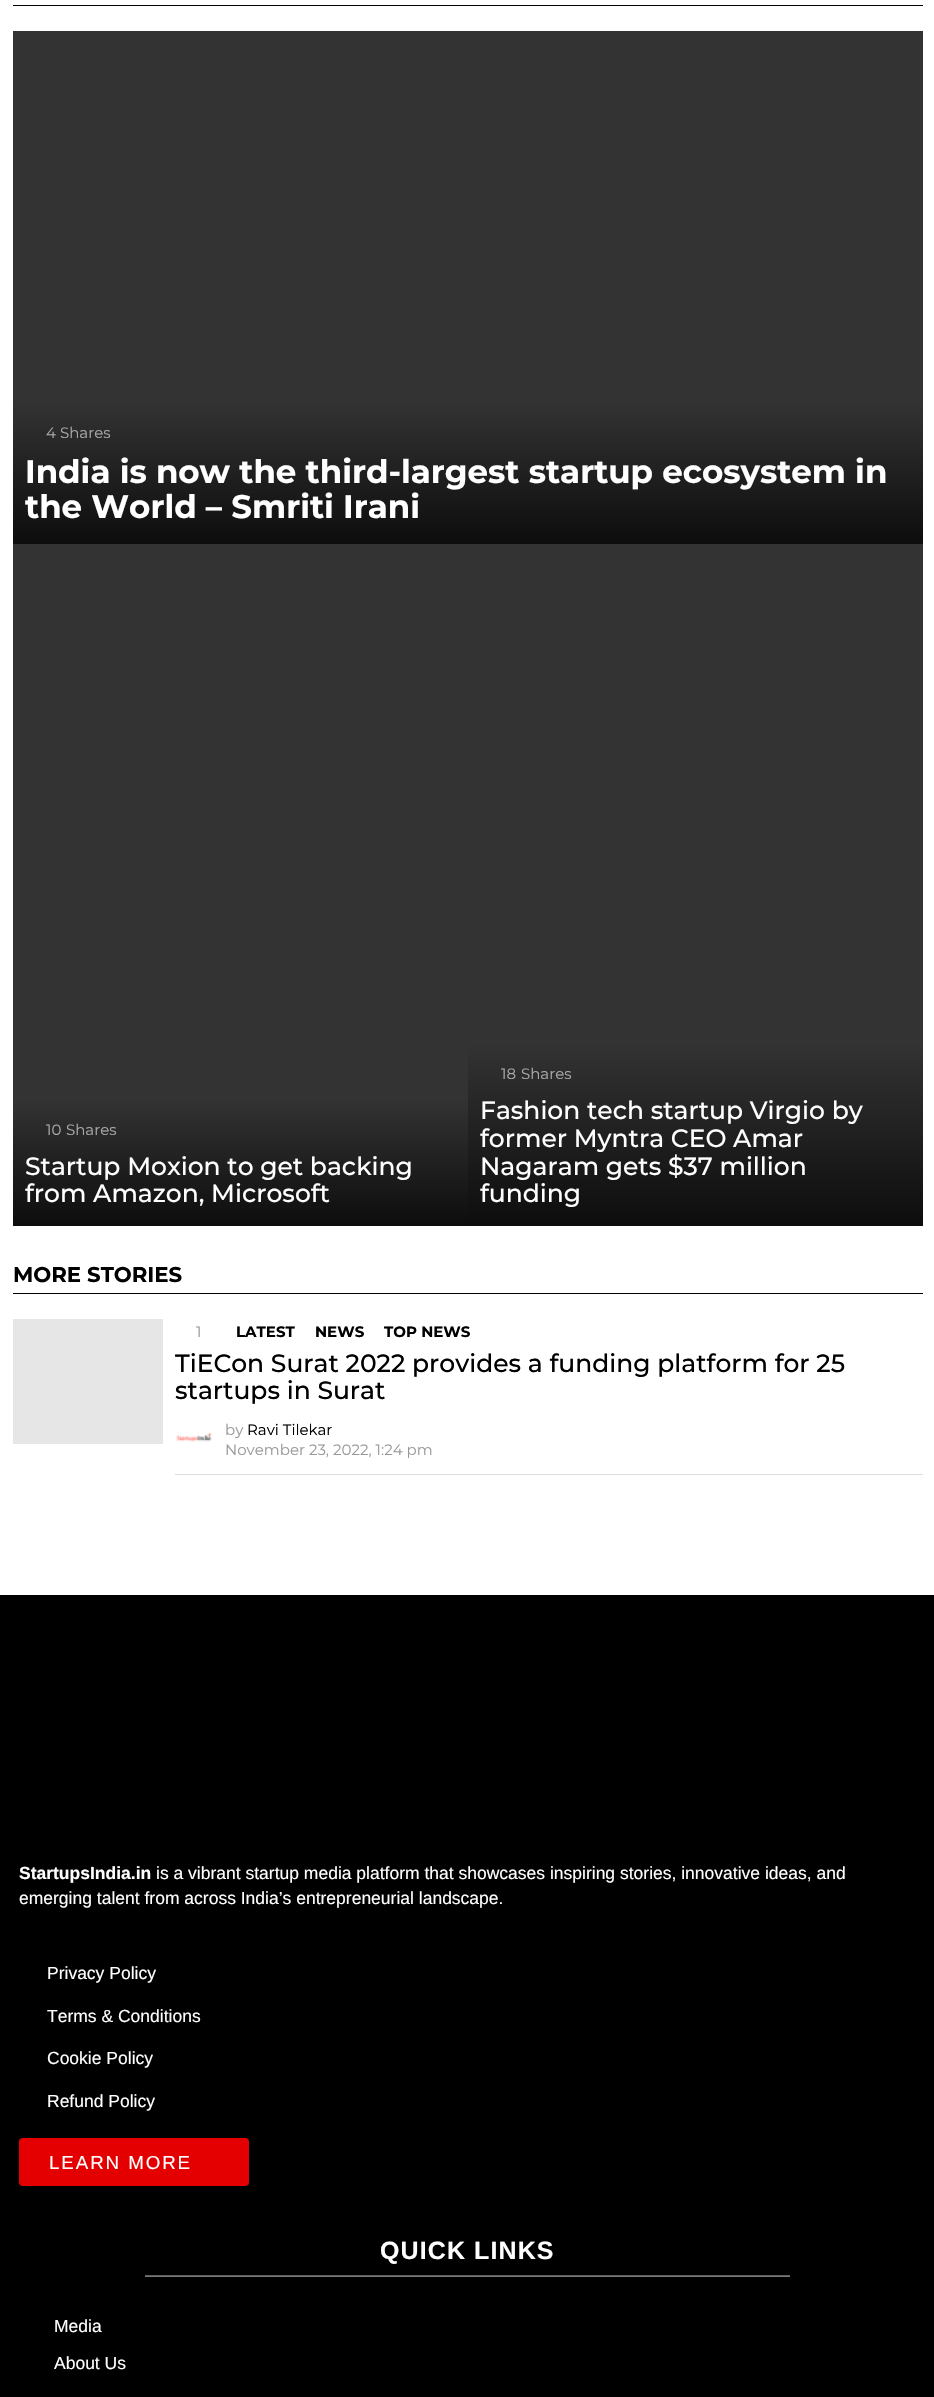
#include "include/core/SkBlurTypes.h"
#include "include/core/SkCanvas.h"
#include "include/core/SkData.h"
#include "include/core/SkFont.h"
#include "include/core/SkFontMgr.h"
#include "include/core/SkImage.h"
#include "include/core/SkMaskFilter.h"
#include "include/core/SkPaint.h"
#include "include/core/SkPathBuilder.h"
#include "include/core/SkTextBlob.h"
#include "include/effects/SkDashPathEffect.h"
#include "include/effects/SkGradientShader.h"
#include "include/utils/SkParsePath.h"

extern sk_sp<SkFontMgr> fontMgr;

void draw(SkCanvas* canvas) {
  SkPaint p;
  p.setAntiAlias(true);
  auto spacedText = [&](const char* s, float x, float y, const SkFont& font, const SkPaint& ink, float letter, float word) {
    std::vector<SkGlyphID> glyphs(font.countText(s, strlen(s), SkTextEncoding::kUTF8));
    std::vector<float> xs(glyphs.size());
    font.textToGlyphs(s, strlen(s), SkTextEncoding::kUTF8, glyphs);
    font.getXPos(glyphs, xs, x);
    float extra = 0;
    for (size_t i = 0; i < glyphs.size(); i++) {
      xs[i] += extra;
      extra += letter + word * (glyphs[i] == font.unicharToGlyph(' '));
    }
    canvas->drawTextBlob(SkTextBlob::MakeFromPosHGlyphs(glyphs, xs, y, font), 0, 0, ink);
  };
  canvas->clear(SK_ColorWHITE);
  p.setColor(SK_ColorBLACK);
  canvas->drawRect(SkRect::MakeLTRB(13, 5, 923, 6), p);
  p.setColor(SkColorSetRGB(51, 51, 51));
  canvas->drawRect(SkRect::MakeLTRB(13, 31, 923, 401), p);
  {
    const SkColor colors[] = {SkColorSetRGB(51, 51, 51), SkColorSetRGB(13, 13, 13)};
    const float stops[] = {0, 1};
    const SkPoint ends[] = {{468, 401}, {468, 544}};
    p.setShader(SkGradientShader::MakeLinear(ends, colors, stops, 2, SkTileMode::kClamp));
    p.setAlpha(255);
  }
  canvas->drawRect(SkRect::MakeLTRB(13, 401, 923, 544), p);
  p.setShader(nullptr);
  p.setColor(SkColorSetRGB(51, 51, 51));
  canvas->drawRect(SkRect::MakeLTRB(13, 544, 468, 1099), p);
  {
    const SkColor colors[] = {SkColorSetRGB(51, 51, 51), SkColorSetRGB(13, 13, 13)};
    const float stops[] = {0, 1};
    const SkPoint ends[] = {{240, 1099}, {240, 1226}};
    p.setShader(SkGradientShader::MakeLinear(ends, colors, stops, 2, SkTileMode::kClamp));
    p.setAlpha(255);
  }
  canvas->drawRect(SkRect::MakeLTRB(13, 1099, 468, 1226), p);
  p.setShader(nullptr);
  p.setColor(SkColorSetRGB(51, 51, 51));
  canvas->drawRect(SkRect::MakeLTRB(468, 544, 923, 1043), p);
  {
    const SkColor colors[] = {SkColorSetRGB(51, 51, 51), SkColorSetRGB(13, 13, 13)};
    const float stops[] = {0, 1};
    const SkPoint ends[] = {{695, 1043}, {695, 1226}};
    p.setShader(SkGradientShader::MakeLinear(ends, colors, stops, 2, SkTileMode::kClamp));
    p.setAlpha(255);
  }
  canvas->drawRect(SkRect::MakeLTRB(468, 1043, 923, 1226), p);
  p.setShader(nullptr);
  p.setColor(SK_ColorBLACK);
  canvas->drawRect(SkRect::MakeLTRB(13, 1293, 923, 1294), p);
  p.setColor(SkColorSetRGB(230, 230, 230));
  canvas->drawRect(SkRect::MakeLTRB(13, 1319, 163, 1444), p);
  canvas->drawImageRect(SkImages::DeferredFromEncodedData(SkData::MakeFromFileName("images/1.png")), SkRect::MakeLTRB(176, 1432, 212, 1442), SkSamplingOptions());
  p.setColor(SkColorSetRGB(221, 221, 221));
  canvas->drawRect(SkRect::MakeLTRB(175, 1474, 923, 1475), p);
  p.setColor(SK_ColorBLACK);
  canvas->drawRect(SkRect::MakeLTRB(0, 1595, 934, 2397), p);
  p.setColor(SkColorSetRGB(228, 0, 0));
  canvas->drawRoundRect(SkRect::MakeLTRB(19, 2138, 249, 2186), 4, 4, p);
  canvas->drawImageRect(SkImages::DeferredFromEncodedData(SkData::MakeFromFileName("images/2.png")), SkRect::MakeLTRB(145, 2275, 790, 2277), SkSamplingOptions());
  SkFont font1(fontMgr->matchFamilyStyle("Montserrat", SkFontStyle::Normal()), 15);
  font1.setSubpixel(true);
  p.setColor(SkColorSetRGB(170, 170, 170));
  canvas->drawString("4", 46, 438, font1, p);
  canvas->drawString("Shares", 60, 438, font1, p);
  SkFont font2(fontMgr->matchFamilyStyle("Montserrat", SkFontStyle::Bold()), 32.5f);
  font2.setSubpixel(true);
  p.setColor(SK_ColorWHITE);
  canvas->drawString("India is now the third-largest startup ecosystem in", 25, 483, font2, p);
  canvas->drawString("the World – Smriti Irani", 25, 518, font2, p);
  p.setColor(SkColorSetRGB(170, 170, 170));
  canvas->drawString("10", 46, 1135, font1, p);
  canvas->drawString("Shares", 66, 1135, font1, p);
  SkFont font3(fontMgr->matchFamilyStyle("Montserrat", SkFontStyle(500, SkFontStyle::kNormal_Width, SkFontStyle::kUpright_Slant)), 25);
  font3.setSubpixel(true);
  p.setColor(SK_ColorWHITE);
  canvas->drawString("Startup Moxion to get backing", 25, 1175, font3, p);
  canvas->drawString("from Amazon, Microsoft", 25, 1202, font3, p);
  p.setColor(SkColorSetRGB(170, 170, 170));
  canvas->drawString("18", 501, 1079, font1, p);
  canvas->drawString("Shares", 521, 1079, font1, p);
  p.setColor(SK_ColorWHITE);
  canvas->drawString("Fashion tech startup Virgio by", 480, 1119, font3, p);
  canvas->drawString("former Myntra CEO Amar", 480, 1147, font3, p);
  canvas->drawString("Nagaram gets $37 million", 480, 1175, font3, p);
  canvas->drawString("funding", 480, 1202, font3, p);
  SkFont font4(fontMgr->matchFamilyStyle("Montserrat", SkFontStyle::Bold()), 21.25f);
  font4.setSubpixel(true);
  p.setColor(SK_ColorBLACK);
  canvas->drawString("MORE STORIES", 13, 1282, font4, p);
  p.setColor(SkColorSetRGB(153, 153, 153));
  canvas->drawString("1", 196, 1337, font1, p);
  SkFont font5(fontMgr->matchFamilyStyle("Montserrat", SkFontStyle::Bold()), 15);
  font5.setSubpixel(true);
  p.setColor(SK_ColorBLACK);
  canvas->drawString("LATEST", 236, 1337, font5, p);
  canvas->drawString("NEWS", 315, 1337, font5, p);
  canvas->drawString("TOP NEWS", 384, 1337, font5, p);
  canvas->drawString("TiECon Surat 2022 provides a funding platform for 25", 175, 1372, font3, p);
  canvas->drawString("startups in Surat", 175, 1399, font3, p);
  p.setColor(SkColorSetRGB(153, 153, 153));
  canvas->drawString("by", 225, 1435, font1, p);
  p.setColor(SK_ColorBLACK);
  canvas->drawString("Ravi Tilekar", 247, 1435, font1, p);
  p.setColor(SkColorSetRGB(153, 153, 153));
  canvas->drawString("November 23, 2022, 1:24 pm", 225, 1455, font1, p);
  SkFont font6(fontMgr->matchFamilyStyle("Liberation Sans", SkFontStyle::Bold()), 17.5f);
  font6.setSubpixel(true);
  p.setColor(SK_ColorWHITE);
  canvas->drawString("StartupsIndia.in", 19, 1879, font6, p);
  SkFont font7(fontMgr->matchFamilyStyle("Liberation Sans", SkFontStyle::Normal()), 17.5f);
  font7.setSubpixel(true);
  canvas->drawString("is a vibrant startup media platform that showcases inspiring stories, innovative ideas, and", 156, 1879, font7, p);
  canvas->drawString("emerging talent from across India’s entrepreneurial landscape.", 19, 1904, font7, p);
  canvas->drawString("Privacy Policy", 47, 1979, font7, p);
  canvas->drawString("Terms & Conditions", 47, 2022, font7, p);
  canvas->drawString("Cookie Policy", 47, 2064, font7, p);
  canvas->drawString("Refund Policy", 47, 2107, font7, p);
  SkFont font8(fontMgr->matchFamilyStyle("Liberation Sans", SkFontStyle::Normal()), 18.75f);
  font8.setSubpixel(true);
  spacedText("LEARN MORE", 49, 2169, font8, p, 1.9f, 0);
  SkFont font9(fontMgr->matchFamilyStyle("Liberation Sans", SkFontStyle::Bold()), 25);
  font9.setSubpixel(true);
  spacedText("QUICK LINKS", 380, 2259, font9, p, 1.1f, 0);
  canvas->drawString("Media", 54, 2332, font7, p);
  canvas->drawString("About Us", 54, 2369, font7, p);
}
